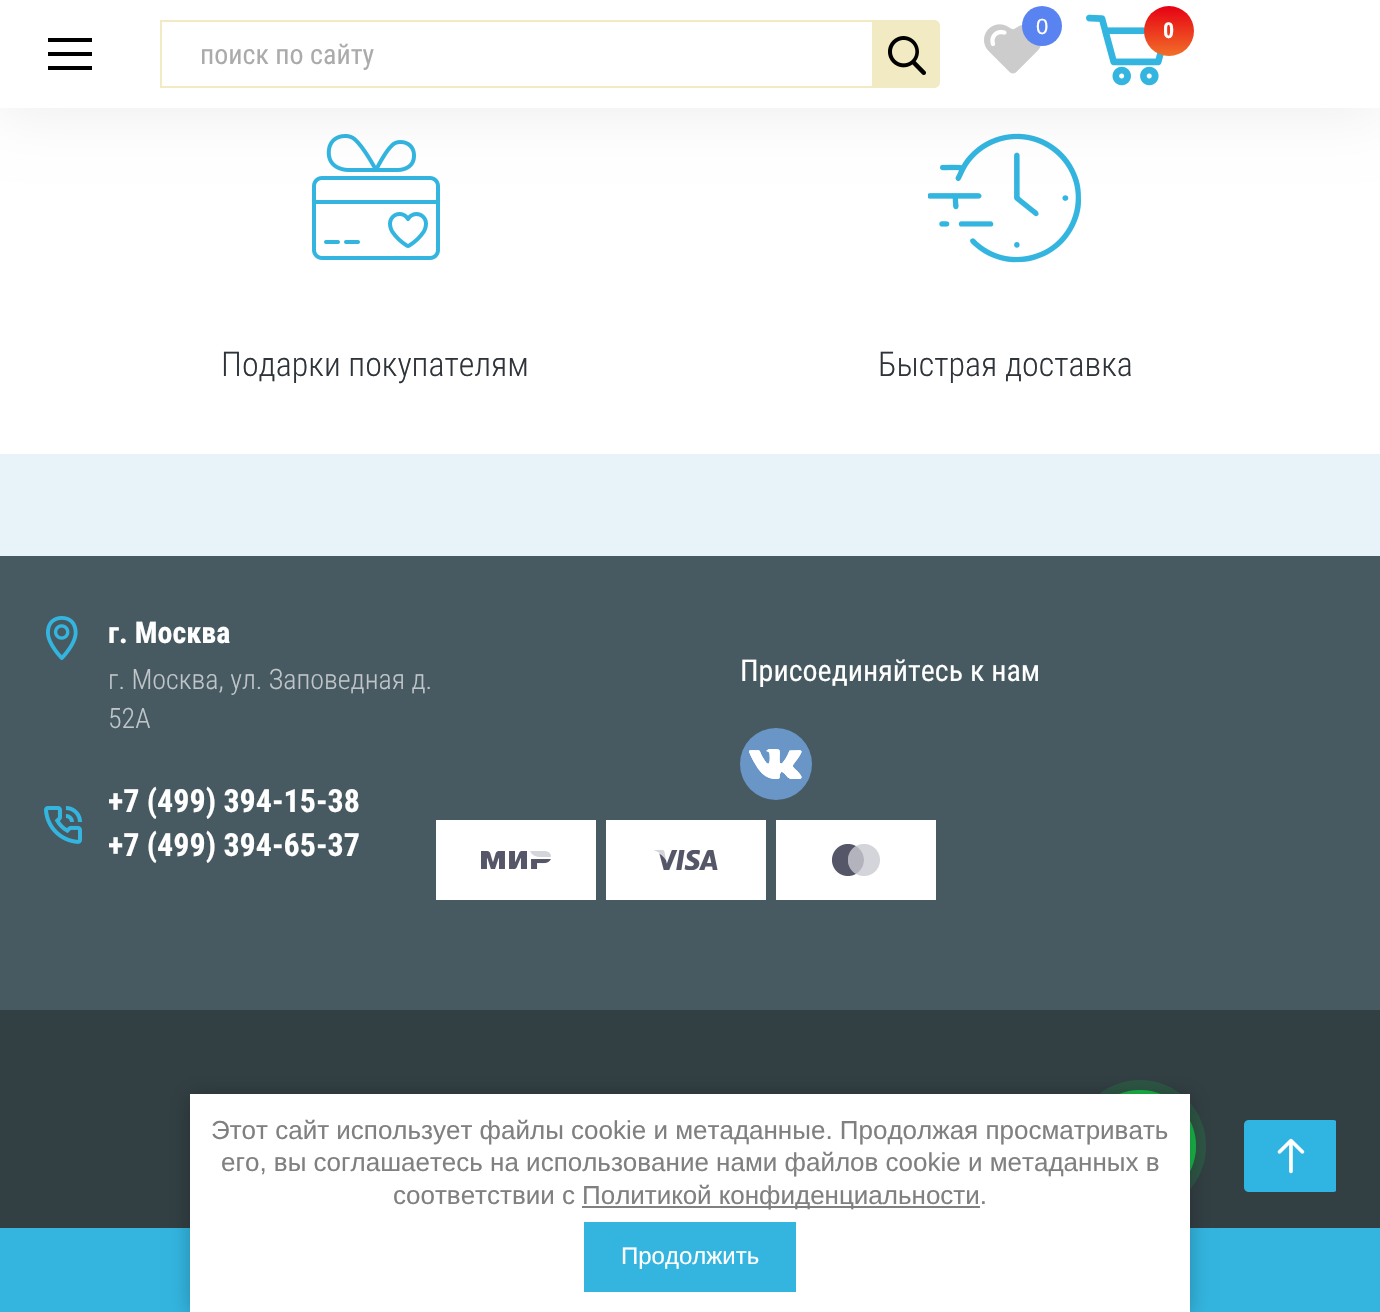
#include "include/core/SkBlurTypes.h"
#include "include/core/SkCanvas.h"
#include "include/core/SkData.h"
#include "include/core/SkFont.h"
#include "include/core/SkFontMgr.h"
#include "include/core/SkImage.h"
#include "include/core/SkMaskFilter.h"
#include "include/core/SkPaint.h"
#include "include/core/SkPathBuilder.h"
#include "include/core/SkTextBlob.h"
#include "include/effects/SkDashPathEffect.h"
#include "include/effects/SkGradientShader.h"
#include "include/utils/SkParsePath.h"

extern sk_sp<SkFontMgr> fontMgr;

void draw(SkCanvas* canvas) {
  SkPaint p;
  p.setAntiAlias(true);
  canvas->clear(SkColorSetRGB(231, 243, 248));
  p.setColor(SK_ColorWHITE);
  canvas->drawRect(SkRect::MakeLTRB(0, 108, 1380, 454), p);
  canvas->drawImageRect(SkImages::DeferredFromEncodedData(SkData::MakeFromFileName("images/4.png")), SkRect::MakeLTRB(312, 134, 440, 260), SkSamplingOptions());
  canvas->drawImageRect(SkImages::DeferredFromEncodedData(SkData::MakeFromFileName("images/5.png")), SkRect::MakeLTRB(928, 133, 1081, 263), SkSamplingOptions());
  p.setColor(SkColorSetARGB(18, 0, 0, 0));
  p.setMaskFilter(SkMaskFilter::MakeBlur(kNormal_SkBlurStyle, 30));
  canvas->drawRect(SkRect::MakeLTRB(-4, -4, 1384, 112), p);
  p.setMaskFilter(nullptr);
  p.setColor(SK_ColorWHITE);
  canvas->drawRect(SkRect::MakeLTRB(0, 0, 1380, 108), p);
  p.setColor(SK_ColorBLACK);
  canvas->drawRect(SkRect::MakeLTRB(48, 38, 92, 42), p);
  canvas->drawRect(SkRect::MakeLTRB(48, 52, 92, 56), p);
  canvas->drawRect(SkRect::MakeLTRB(48, 66, 92, 70), p);
  canvas->drawImageRect(SkImages::DeferredFromEncodedData(SkData::MakeFromFileName("images/1.png")), SkRect::MakeLTRB(984, 24, 1041, 74), SkSamplingOptions());
  p.setColor(SkColorSetRGB(89, 131, 240));
  canvas->drawCircle(1042, 26, 20, p);
  canvas->drawImageRect(SkImages::DeferredFromEncodedData(SkData::MakeFromFileName("images/2.png")), SkRect::MakeLTRB(1086, 14, 1164, 86), SkSamplingOptions());
  {
    const SkColor colors[] = {SkColorSetRGB(242, 111, 41), SkColorSetRGB(230, 0, 19)};
    const float stops[] = {0, 1};
    const SkPoint ends[] = {{1169, 56}, {1169, 6}};
    p.setShader(SkGradientShader::MakeLinear(ends, colors, stops, 2, SkTileMode::kClamp));
    p.setAlpha(255);
  }
  canvas->drawCircle(1169, 31, 25, p);
  p.setStyle(SkPaint::kStroke_Style);
  p.setStrokeWidth(2);
  p.setShader(nullptr);
  p.setColor(SkColorSetRGB(242, 234, 194));
  canvas->drawRect(SkRect::MakeLTRB(161, 21, 873, 87), p);
  p.setStyle(SkPaint::kFill_Style);
  canvas->drawPath(SkPathBuilder().moveTo(872, 20).lineTo(934, 20).cubicTo(937.5f, 20, 940, 22.5f, 940, 26).lineTo(940, 82).cubicTo(940, 85.5f, 937.5f, 88, 934, 88).lineTo(872, 88).close().detach(), p);
  canvas->drawImageRect(SkImages::DeferredFromEncodedData(SkData::MakeFromFileName("images/3.png")), SkRect::MakeLTRB(888, 36, 926, 75), SkSamplingOptions());
  p.setColor(SkColorSetRGB(71, 90, 97));
  canvas->drawRect(SkRect::MakeLTRB(0, 556, 1380, 1010), p);
  canvas->drawImageRect(SkImages::DeferredFromEncodedData(SkData::MakeFromFileName("images/6.png")), SkRect::MakeLTRB(46, 616, 78, 660), SkSamplingOptions());
  canvas->drawImageRect(SkImages::DeferredFromEncodedData(SkData::MakeFromFileName("images/7.png")), SkRect::MakeLTRB(740, 728, 812, 800), SkSamplingOptions());
  canvas->drawImageRect(SkImages::DeferredFromEncodedData(SkData::MakeFromFileName("images/8.png")), SkRect::MakeLTRB(44, 806, 82, 844), SkSamplingOptions());
  canvas->drawImageRect(SkImages::DeferredFromEncodedData(SkData::MakeFromFileName("images/9.png")), SkRect::MakeLTRB(436, 820, 596, 900), SkSamplingOptions());
  canvas->drawImageRect(SkImages::DeferredFromEncodedData(SkData::MakeFromFileName("images/10.png")), SkRect::MakeLTRB(606, 820, 766, 900), SkSamplingOptions());
  canvas->drawImageRect(SkImages::DeferredFromEncodedData(SkData::MakeFromFileName("images/11.png")), SkRect::MakeLTRB(776, 820, 936, 900), SkSamplingOptions());
  p.setColor(SkColorSetRGB(50, 63, 67));
  canvas->drawRect(SkRect::MakeLTRB(0, 1010, 1380, 1228), p);
  p.setColor(SkColorSetRGB(21, 187, 71));
  canvas->drawCircle(1140, 1146, 56, p);
  p.setColor(SkColorSetARGB(56, 28, 163, 69));
  canvas->drawCircle(1140, 1146, 66, p);
  p.setStyle(SkPaint::kStroke_Style);
  canvas->drawCircle(1140, 1146, 55, p);
  p.setStyle(SkPaint::kFill_Style);
  p.setColor(SkColorSetRGB(51, 181, 224));
  canvas->drawRect(SkRect::MakeLTRB(0, 1228, 1380, 1312), p);
  p.setColor(SkColorSetARGB(64, 0, 0, 0));
  p.setMaskFilter(SkMaskFilter::MakeBlur(kNormal_SkBlurStyle, 10));
  canvas->drawRect(SkRect::MakeLTRB(190, 1096, 1190, 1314), p);
  p.setMaskFilter(nullptr);
  p.setColor(SK_ColorWHITE);
  canvas->drawRect(SkRect::MakeLTRB(190, 1094, 1190, 1312), p);
  p.setColor(SkColorSetRGB(128, 128, 128));
  canvas->drawRect(SkRect::MakeLTRB(582, 1206, 980, 1208), p);
  p.setColor(SkColorSetRGB(51, 181, 224));
  canvas->drawRect(SkRect::MakeLTRB(584, 1222, 796, 1292), p);
  canvas->drawImageRect(SkImages::DeferredFromEncodedData(SkData::MakeFromFileName("images/12.png")), SkRect::MakeLTRB(1244, 1120, 1336, 1192), SkSamplingOptions());
  SkFont font1(fontMgr->matchFamilyStyle("Liberation Sans", SkFontStyle::Normal()), 22);
  font1.setSubpixel(true);
  p.setColor(SK_ColorWHITE);
  canvas->drawString("0", 1036, 34, font1, p);
  SkFont font2(fontMgr->matchFamilyStyle("Roboto Condensed", SkFontStyle::Bold()), 22);
  font2.setSubpixel(true);
  canvas->drawString("0", 1163, 38, font2, p);
  SkFont font3(fontMgr->matchFamilyStyle("Roboto Condensed", SkFontStyle::Normal()), 28);
  font3.setSubpixel(true);
  p.setColor(SkColorSetRGB(171, 171, 171));
  canvas->drawString("поиск по сайту", 200, 64, font3, p);
  SkFont font4(fontMgr->matchFamilyStyle("Roboto Condensed", SkFontStyle(300, SkFontStyle::kNormal_Width, SkFontStyle::kUpright_Slant)), 34);
  font4.setSubpixel(true);
  p.setColor(SkColorSetRGB(46, 52, 58));
  canvas->drawString("Подарки покупателям", 221, 376, font4, p);
  canvas->drawString("Быстрая доставка", 878, 376, font4, p);
  SkFont font5(fontMgr->matchFamilyStyle("Roboto Condensed", SkFontStyle::Bold()), 30);
  font5.setSubpixel(true);
  p.setColor(SK_ColorWHITE);
  canvas->drawString("г. Москва", 108, 643, font5, p);
  SkFont font6(fontMgr->matchFamilyStyle("Roboto Condensed", SkFontStyle(300, SkFontStyle::kNormal_Width, SkFontStyle::kUpright_Slant)), 28);
  font6.setSubpixel(true);
  p.setColor(SkColorSetRGB(191, 197, 200));
  canvas->drawString("г. Москва, ул. Заповедная д.", 108, 689, font6, p);
  canvas->drawString("52А", 108, 728, font6, p);
  SkFont font7(fontMgr->matchFamilyStyle("Roboto Condensed", SkFontStyle::Normal()), 30);
  font7.setSubpixel(true);
  p.setColor(SK_ColorWHITE);
  canvas->drawString("Присоединяйтесь к нам", 740, 681, font7, p);
  SkFont font8(fontMgr->matchFamilyStyle("Roboto Condensed", SkFontStyle::Bold()), 32);
  font8.setSubpixel(true);
  canvas->drawString("+7 (499) 394-15-38", 108, 812, font8, p);
  canvas->drawString("+7 (499) 394-65-37", 108, 856, font8, p);
  SkFont font9(fontMgr->matchFamilyStyle("Liberation Sans", SkFontStyle::Normal()), 26);
  font9.setSubpixel(true);
  p.setColor(SkColorSetRGB(128, 128, 128));
  canvas->drawString("Этот сайт использует файлы cookie и метаданные. Продолжая просматривать", 211, 1139, font9, p);
  canvas->drawString("его, вы соглашаетесь на использование нами файлов cookie и метаданных в", 221, 1171, font9, p);
  canvas->drawString("соответствии с", 393, 1204, font9, p);
  canvas->drawString("Политикой конфиденциальности.", 582, 1204, font9, p);
  SkFont font10(fontMgr->matchFamilyStyle("Liberation Sans", SkFontStyle::Normal()), 24);
  font10.setSubpixel(true);
  p.setColor(SK_ColorWHITE);
  canvas->drawString("Продолжить", 621, 1264, font10, p);
}
